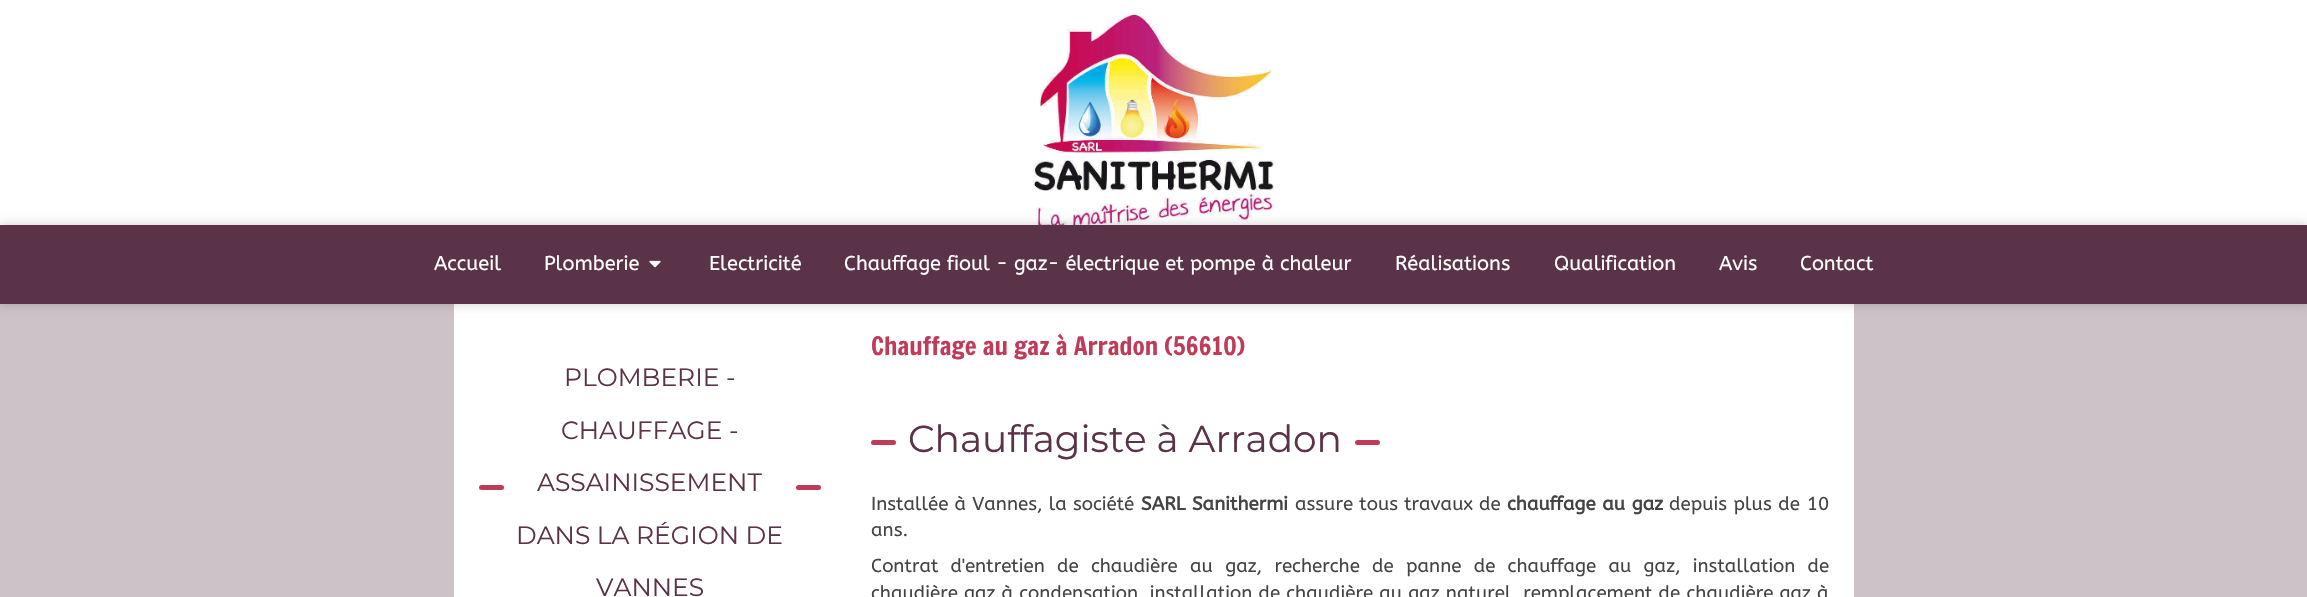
#include "include/core/SkBlurTypes.h"
#include "include/core/SkCanvas.h"
#include "include/core/SkData.h"
#include "include/core/SkFont.h"
#include "include/core/SkFontMgr.h"
#include "include/core/SkImage.h"
#include "include/core/SkMaskFilter.h"
#include "include/core/SkPaint.h"
#include "include/core/SkPathBuilder.h"
#include "include/core/SkTextBlob.h"
#include "include/effects/SkDashPathEffect.h"
#include "include/effects/SkGradientShader.h"
#include "include/utils/SkParsePath.h"

extern sk_sp<SkFontMgr> fontMgr;

void draw(SkCanvas* canvas) {
  SkPaint p;
  p.setAntiAlias(true);
  auto spacedText = [&](const char* s, float x, float y, const SkFont& font, const SkPaint& ink, float letter, float word) {
    std::vector<SkGlyphID> glyphs(font.countText(s, strlen(s), SkTextEncoding::kUTF8));
    std::vector<float> xs(glyphs.size());
    font.textToGlyphs(s, strlen(s), SkTextEncoding::kUTF8, glyphs);
    font.getXPos(glyphs, xs, x);
    float extra = 0;
    for (size_t i = 0; i < glyphs.size(); i++) {
      xs[i] += extra;
      extra += letter + word * (glyphs[i] == font.unicharToGlyph(' '));
    }
    canvas->drawTextBlob(SkTextBlob::MakeFromPosHGlyphs(glyphs, xs, y, font), 0, 0, ink);
  };
  canvas->clear(SkColorSetRGB(206, 194, 201));
  p.setColor(SK_ColorWHITE);
  canvas->drawRect(SkRect::MakeLTRB(0, 0, 2307, 225), p);
  canvas->drawImageRect(SkImages::DeferredFromEncodedData(SkData::MakeFromFileName("images/1.png")), SkRect::MakeLTRB(1030, 12, 1278, 225), SkSamplingOptions());
  canvas->drawRect(SkRect::MakeLTRB(454, 304, 1854, 597), p);
  p.setColor(SkColorSetARGB(51, 0, 0, 0));
  p.setMaskFilter(SkMaskFilter::MakeBlur(kNormal_SkBlurStyle, 5));
  canvas->drawRect(SkRect::MakeLTRB(0, 225, 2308, 304), p);
  p.setMaskFilter(nullptr);
  p.setColor(SkColorSetRGB(91, 51, 73));
  canvas->drawRect(SkRect::MakeLTRB(0, 225, 2307, 304), p);
  canvas->drawImageRect(SkImages::DeferredFromEncodedData(SkData::MakeFromFileName("images/2.png")), SkRect::MakeLTRB(649, 260, 661, 268), SkSamplingOptions());
  p.setColor(SkColorSetRGB(191, 59, 88));
  canvas->drawRoundRect(SkRect::MakeLTRB(479, 485, 504, 490), 2.5f, 2.5f, p);
  canvas->drawRoundRect(SkRect::MakeLTRB(796, 485, 821, 490), 2.5f, 2.5f, p);
  canvas->drawRoundRect(SkRect::MakeLTRB(871, 440, 896, 445), 2.5f, 2.5f, p);
  canvas->drawRoundRect(SkRect::MakeLTRB(1355, 440, 1380, 445), 2.5f, 2.5f, p);
  SkFont font1(fontMgr->matchFamilyStyle("ABeeZee", SkFontStyle::Normal()), 20);
  font1.setSubpixel(true);
  p.setColor(SK_ColorWHITE);
  canvas->drawString("Accueil", 434, 270, font1, p);
  canvas->drawString("Plomberie", 544, 270, font1, p);
  canvas->drawString("Electricité", 709, 270, font1, p);
  canvas->drawString("Chauffage fioul - gaz- électrique et pompe à chaleur", 844, 270, font1, p);
  canvas->drawString("Réalisations", 1395, 270, font1, p);
  canvas->drawString("Qualification", 1554, 270, font1, p);
  canvas->drawString("Avis", 1719, 270, font1, p);
  canvas->drawString("Contact", 1800, 270, font1, p);
  SkFont font2(fontMgr->matchFamilyStyle("Montserrat", SkFontStyle::Normal()), 25);
  font2.setSubpixel(true);
  p.setColor(SkColorSetRGB(91, 51, 73));
  canvas->drawString("PLOMBERIE -", 564, 386, font2, p);
  canvas->drawString("CHAUFFAGE -", 561, 439, font2, p);
  canvas->drawString("ASSAINISSEMENT", 537, 491, font2, p);
  canvas->drawString("DANS LA RÉGION DE", 516, 544, font2, p);
  canvas->drawString("VANNES", 596, 596, font2, p);
  SkFont font3(fontMgr->matchFamilyStyle("Francois One", SkFontStyle::Normal()), 25);
  font3.setSubpixel(true);
  p.setColor(SkColorSetRGB(191, 59, 88));
  canvas->drawString("Chauffage au gaz à Arradon (56610)", 871, 355, font3, p);
  SkFont font4(fontMgr->matchFamilyStyle("Montserrat", SkFontStyle::Normal()), 37.5f);
  font4.setSubpixel(true);
  p.setColor(SkColorSetRGB(91, 51, 73));
  canvas->drawString("Chauffagiste à Arradon", 908, 452, font4, p);
  SkFont font5(fontMgr->matchFamilyStyle("ABeeZee", SkFontStyle::Normal()), 18.75f);
  font5.setSubpixel(true);
  p.setColor(SkColorSetRGB(68, 68, 68));
  spacedText("Installée à Vannes, la société", 871, 510, font5, p, 0, 0.5f);
  SkFont font6(fontMgr->matchFamilyStyle("ABeeZee", SkFontStyle::Bold()), 18.75f);
  font6.setSubpixel(true);
  spacedText("SARL Sanithermi", 1141, 510, font6, p, 0, 1);
  spacedText("assure tous travaux de", 1295, 510, font5, p, 0, 0.5f);
  spacedText("chauffage au gaz", 1507, 510, font6, p, 0, 1);
  spacedText("depuis plus de 10", 1669, 510, font5, p, 0, 1);
  canvas->drawString("ans.", 871, 536, font5, p);
  spacedText("Contrat d'entretien de chaudière au gaz, recherche de panne de chauffage au gaz, installation de", 871, 572, font5, p, 0, 6.6f);
  spacedText("chaudière gaz à condensation, installation de chaudière au gaz naturel, remplacement de chaudière gaz à", 871, 599, font5, p, 0, 0.5f);
}
